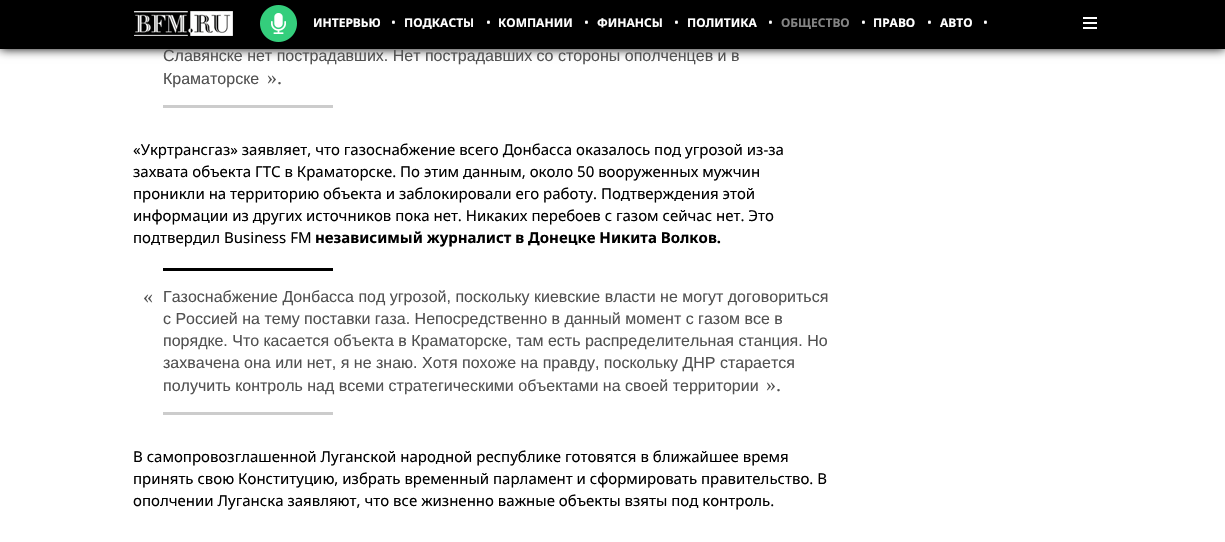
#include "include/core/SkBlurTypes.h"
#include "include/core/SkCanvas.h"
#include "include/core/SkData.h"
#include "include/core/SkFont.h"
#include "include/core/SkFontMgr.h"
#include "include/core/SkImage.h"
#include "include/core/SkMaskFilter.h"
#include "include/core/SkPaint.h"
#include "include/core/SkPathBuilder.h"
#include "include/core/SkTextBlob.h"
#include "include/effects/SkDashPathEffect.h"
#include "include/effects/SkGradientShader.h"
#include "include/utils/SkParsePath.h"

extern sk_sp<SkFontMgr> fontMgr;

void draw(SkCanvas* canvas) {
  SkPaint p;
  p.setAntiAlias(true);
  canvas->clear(SK_ColorWHITE);
  p.setColor(SK_ColorBLACK);
  p.setMaskFilter(SkMaskFilter::MakeBlur(kNormal_SkBlurStyle, 5));
  canvas->drawRect(SkRect::MakeLTRB(0, 0, 1225, 49), p);
  p.setMaskFilter(nullptr);
  canvas->drawRect(SkRect::MakeLTRB(0, 0, 1225, 49), p);
  canvas->drawImageRect(SkImages::DeferredFromEncodedData(SkData::MakeFromFileName("images/1.png")), SkRect::MakeLTRB(134, 11, 233, 36), SkSamplingOptions());
  canvas->drawImageRect(SkImages::DeferredFromEncodedData(SkData::MakeFromFileName("images/2.png")), SkRect::MakeLTRB(260, 5, 297, 42), SkSamplingOptions());
  canvas->drawImageRect(SkImages::DeferredFromEncodedData(SkData::MakeFromFileName("images/3.png")), SkRect::MakeLTRB(1083, 17, 1097, 29), SkSamplingOptions());
  p.setColor(SkColorSetRGB(204, 204, 204));
  canvas->drawRect(SkRect::MakeLTRB(163, 105, 333, 108), p);
  p.setColor(SK_ColorBLACK);
  canvas->drawRect(SkRect::MakeLTRB(163, 268, 333, 271), p);
  p.setColor(SkColorSetRGB(204, 204, 204));
  canvas->drawRect(SkRect::MakeLTRB(163, 412, 333, 415), p);
  SkFont font1(fontMgr->matchFamilyStyle("Noto Sans", SkFontStyle::Bold()), 12);
  font1.setSubpixel(true);
  p.setColor(SK_ColorWHITE);
  canvas->drawString("ИНТЕРВЬЮ", 313, 27, font1, p);
  SkFont font2(fontMgr->matchFamilyStyle("Noto Sans", SkFontStyle::Normal()), 13);
  font2.setSubpixel(true);
  canvas->drawString("•", 391, 27, font2, p);
  canvas->drawString("ПОДКАСТЫ", 404, 27, font1, p);
  canvas->drawString("•", 486, 27, font2, p);
  canvas->drawString("КОМПАНИИ", 498, 27, font1, p);
  canvas->drawString("•", 584, 27, font2, p);
  canvas->drawString("ФИНАНСЫ", 597, 27, font1, p);
  canvas->drawString("•", 674, 27, font2, p);
  canvas->drawString("ПОЛИТИКА", 687, 27, font1, p);
  canvas->drawString("•", 768, 27, font2, p);
  p.setColor(SkColorSetRGB(132, 132, 132));
  canvas->drawString("ОБЩЕСТВО", 781, 27, font1, p);
  p.setColor(SK_ColorWHITE);
  canvas->drawString("•", 861, 27, font2, p);
  canvas->drawString("ПРАВО", 873, 27, font1, p);
  canvas->drawString("•", 927, 27, font2, p);
  canvas->drawString("АВТО", 940, 27, font1, p);
  canvas->drawString("•", 983, 27, font2, p);
  SkFont font3(fontMgr->matchFamilyStyle("Liberation Sans", SkFontStyle::Normal()), 16);
  font3.setSubpixel(true);
  p.setColor(SkColorSetRGB(81, 81, 81));
  canvas->drawString("Славянске нет пострадавших. Нет пострадавших со стороны ополченцев и в", 163, 61, font3, p);
  canvas->drawString("Краматорске", 163, 84, font3, p);
  SkFont font4(fontMgr->matchFamilyStyle("Liberation Serif", SkFontStyle::Normal()), 20);
  font4.setSubpixel(true);
  canvas->drawString("».", 267, 84, font4, p);
  SkFont font5(fontMgr->matchFamilyStyle("Noto Sans", SkFontStyle::Normal()), 15);
  font5.setSubpixel(true);
  p.setColor(SK_ColorBLACK);
  canvas->drawString("«Укртрансгаз» заявляет, что газоснабжение всего Донбасса оказалось под угрозой из-за", 133, 155, font5, p);
  canvas->drawString("захвата объекта ГТС в Краматорске. По этим данным, около 50 вооруженных мужчин", 133, 177, font5, p);
  canvas->drawString("проникли на территорию объекта и заблокировали его работу. Подтверждения этой", 133, 199, font5, p);
  canvas->drawString("информации из других источников пока нет. Никаких перебоев с газом сейчас нет. Это", 133, 221, font5, p);
  canvas->drawString("подтвердил Business FM", 133, 243, font5, p);
  SkFont font6(fontMgr->matchFamilyStyle("Noto Sans", SkFontStyle::Bold()), 15);
  font6.setSubpixel(true);
  canvas->drawString("независимый журналист в Донецке Никита Волков.", 315, 243, font6, p);
  p.setColor(SkColorSetRGB(81, 81, 81));
  canvas->drawString("«", 143, 303, font4, p);
  canvas->drawString("Газоснабжение Донбасса под угрозой, поскольку киевские власти не могут договориться", 163, 302, font3, p);
  canvas->drawString("с Россией на тему поставки газа. Непосредственно в данный момент с газом все в", 163, 324, font3, p);
  canvas->drawString("порядке. Что касается объекта в Краматорске, там есть распределительная станция. Но", 163, 346, font3, p);
  canvas->drawString("захвачена она или нет, я не знаю. Хотя похоже на правду, поскольку ДНР старается", 163, 368, font3, p);
  canvas->drawString("получить контроль над всеми стратегическими объектами на своей территории", 163, 391, font3, p);
  canvas->drawString("».", 766, 391, font4, p);
  p.setColor(SK_ColorBLACK);
  canvas->drawString("В самопровозглашенной Луганской народной республике готовятся в ближайшее время", 133, 462, font5, p);
  canvas->drawString("принять свою Конституцию, избрать временный парламент и сформировать правительство. В", 133, 484, font5, p);
  canvas->drawString("ополчении Луганска заявляют, что все жизненно важные объекты взяты под контроль.", 133, 506, font5, p);
}
